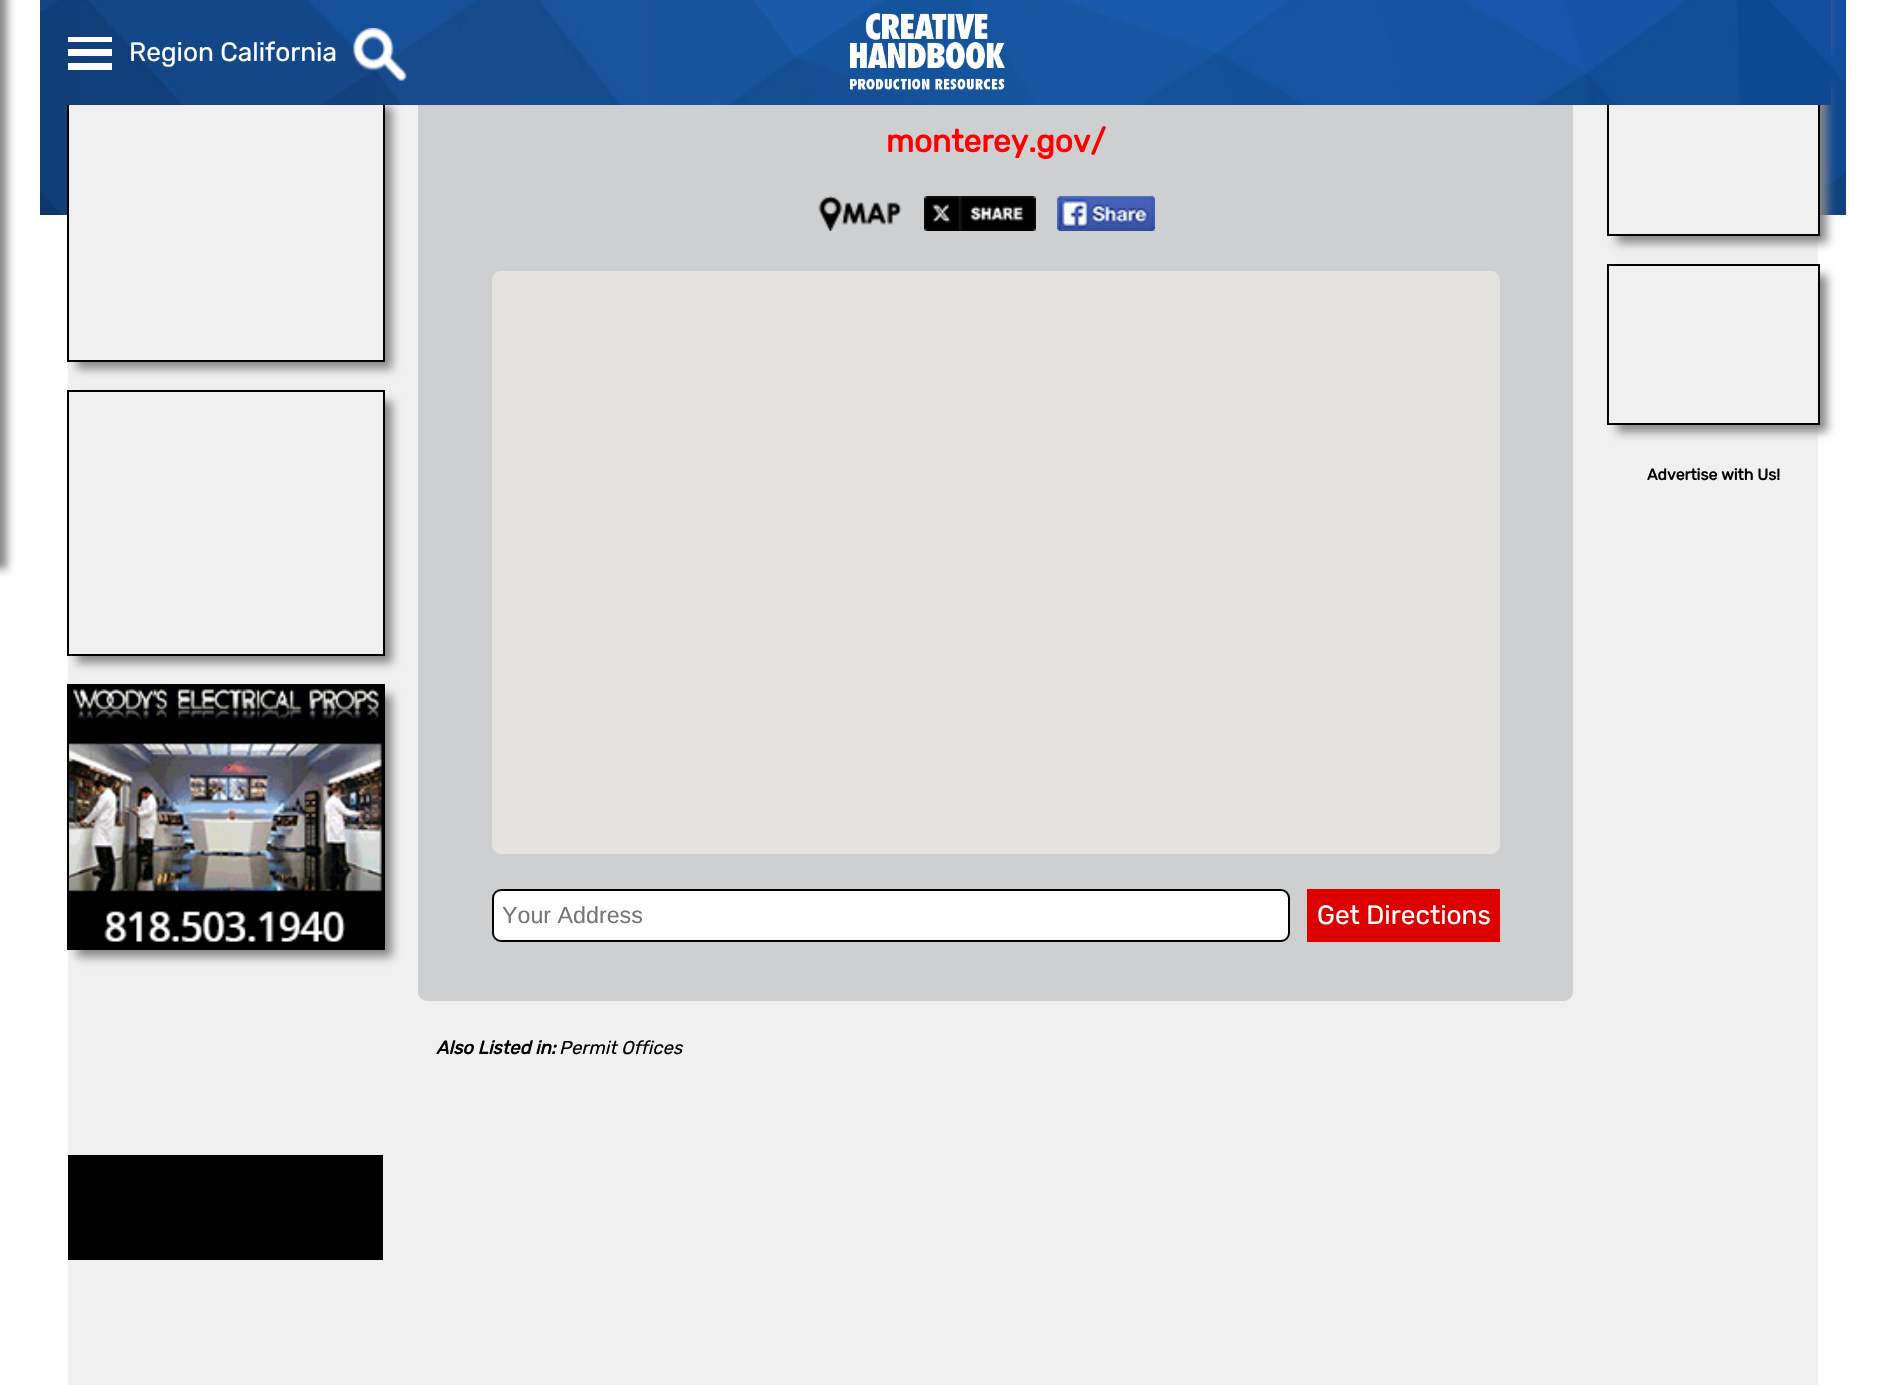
#include "include/core/SkBlurTypes.h"
#include "include/core/SkCanvas.h"
#include "include/core/SkData.h"
#include "include/core/SkFont.h"
#include "include/core/SkFontMgr.h"
#include "include/core/SkImage.h"
#include "include/core/SkMaskFilter.h"
#include "include/core/SkPaint.h"
#include "include/core/SkPathBuilder.h"
#include "include/core/SkTextBlob.h"
#include "include/effects/SkDashPathEffect.h"
#include "include/effects/SkGradientShader.h"
#include "include/utils/SkParsePath.h"

extern sk_sp<SkFontMgr> fontMgr;

void draw(SkCanvas* canvas) {
  SkPaint p;
  p.setAntiAlias(true);
  canvas->clear(SK_ColorWHITE);
  canvas->drawImageRect(SkImages::DeferredFromEncodedData(SkData::MakeFromFileName("images/1.png")), SkRect::MakeLTRB(40, 0, 1846, 215), SkSamplingOptions());
  p.setColor(SkColorSetRGB(136, 136, 136));
  p.setMaskFilter(SkMaskFilter::MakeBlur(kNormal_SkBlurStyle, 4.5f));
  canvas->drawRect(SkRect::MakeLTRB(-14, -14, 7, 569), p);
  p.setMaskFilter(nullptr);
  p.setColor(SkColorSetRGB(240, 240, 240));
  canvas->drawRect(SkRect::MakeLTRB(68, 105, 1818, 1385), p);
  canvas->save();
  canvas->clipPath(SkPathBuilder(SkPathFillType::kEvenOdd).moveTo(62, 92).lineTo(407, 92).lineTo(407, 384).lineTo(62, 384).close().moveTo(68, 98).lineTo(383, 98).lineTo(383, 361).lineTo(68, 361).close().detach(), true);
  p.setColor(SkColorSetRGB(136, 136, 136));
  p.setMaskFilter(SkMaskFilter::MakeBlur(kNormal_SkBlurStyle, 4.5f));
  canvas->drawRect(SkRect::MakeLTRB(77, 107, 392, 369), p);
  p.setMaskFilter(nullptr);
  canvas->restore();
  p.setStyle(SkPaint::kStroke_Style);
  p.setStrokeWidth(2);
  p.setColor(SK_ColorBLACK);
  canvas->drawRect(SkRect::MakeLTRB(68, 97, 384, 361), p);
  p.setStyle(SkPaint::kFill_Style);
  p.setColor(SkColorSetRGB(206, 207, 208));
  canvas->drawRoundRect(SkRect::MakeLTRB(418, -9, 1573, 1001), 9, 9, p);
  p.setColor(SkColorSetRGB(136, 136, 136));
  p.setMaskFilter(SkMaskFilter::MakeBlur(kNormal_SkBlurStyle, 4.5f));
  canvas->drawRect(SkRect::MakeLTRB(1617, -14, 1827, 54), p);
  p.setMaskFilter(nullptr);
  canvas->save();
  canvas->clipPath(SkPathBuilder(SkPathFillType::kEvenOdd).moveTo(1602, 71).lineTo(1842, 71).lineTo(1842, 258).lineTo(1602, 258).close().moveTo(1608, 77).lineTo(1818, 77).lineTo(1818, 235).lineTo(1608, 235).close().detach(), true);
  p.setMaskFilter(SkMaskFilter::MakeBlur(kNormal_SkBlurStyle, 4.5f));
  canvas->drawRect(SkRect::MakeLTRB(1617, 86, 1827, 243), p);
  p.setMaskFilter(nullptr);
  canvas->restore();
  p.setStyle(SkPaint::kStroke_Style);
  p.setColor(SK_ColorBLACK);
  canvas->drawRect(SkRect::MakeLTRB(1608, 76, 1819, 235), p);
  canvas->drawImageRect(SkImages::DeferredFromEncodedData(SkData::MakeFromFileName("images/2.png")), SkRect::MakeLTRB(67, 0, 1831, 105), SkSamplingOptions());
  p.setStyle(SkPaint::kFill_Style);
  p.setColor(SK_ColorWHITE);
  canvas->drawRect(SkRect::MakeLTRB(68, 37, 112, 42), p);
  canvas->drawRect(SkRect::MakeLTRB(68, 49, 112, 56), p);
  canvas->drawRect(SkRect::MakeLTRB(68, 63, 112, 70), p);
  canvas->drawImageRect(SkImages::DeferredFromEncodedData(SkData::MakeFromFileName("images/3.png")), SkRect::MakeLTRB(353, 28, 407, 81), SkSamplingOptions());
  canvas->drawImageRect(SkImages::DeferredFromEncodedData(SkData::MakeFromFileName("images/4.png")), SkRect::MakeLTRB(850, 13, 1005, 90), SkSamplingOptions());
  canvas->save();
  canvas->clipPath(SkPathBuilder(SkPathFillType::kEvenOdd).moveTo(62, 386).lineTo(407, 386).lineTo(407, 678).lineTo(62, 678).close().moveTo(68, 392).lineTo(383, 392).lineTo(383, 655).lineTo(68, 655).close().detach(), true);
  p.setColor(SkColorSetRGB(136, 136, 136));
  p.setMaskFilter(SkMaskFilter::MakeBlur(kNormal_SkBlurStyle, 4.5f));
  canvas->drawRect(SkRect::MakeLTRB(77, 401, 392, 663), p);
  p.setMaskFilter(nullptr);
  canvas->restore();
  p.setStyle(SkPaint::kStroke_Style);
  p.setColor(SK_ColorBLACK);
  canvas->drawRect(SkRect::MakeLTRB(68, 391, 384, 655), p);
  p.setStyle(SkPaint::kFill_Style);
  p.setColor(SkColorSetRGB(136, 136, 136));
  p.setMaskFilter(SkMaskFilter::MakeBlur(kNormal_SkBlurStyle, 4.5f));
  canvas->drawRect(SkRect::MakeLTRB(77, 695, 392, 957), p);
  p.setMaskFilter(nullptr);
  canvas->drawImageRect(SkImages::DeferredFromEncodedData(SkData::MakeFromFileName("images/5.png")), SkRect::MakeLTRB(69, 686, 383, 948), SkSamplingOptions());
  p.setStyle(SkPaint::kStroke_Style);
  p.setColor(SK_ColorBLACK);
  canvas->drawRect(SkRect::MakeLTRB(68, 685, 384, 949), p);
  p.setStyle(SkPaint::kFill_Style);
  canvas->drawRect(SkRect::MakeLTRB(68, 1155, 383, 1260), p);
  canvas->drawImageRect(SkImages::DeferredFromEncodedData(SkData::MakeFromFileName("images/6.png")), SkRect::MakeLTRB(818, 196, 902, 231), SkSamplingOptions());
  canvas->drawImageRect(SkImages::DeferredFromEncodedData(SkData::MakeFromFileName("images/7.png")), SkRect::MakeLTRB(924, 196, 1036, 231), SkSamplingOptions());
  canvas->drawImageRect(SkImages::DeferredFromEncodedData(SkData::MakeFromFileName("images/8.png")), SkRect::MakeLTRB(1057, 196, 1155, 231), SkSamplingOptions());
  p.setColor(SkColorSetRGB(229, 227, 223));
  canvas->drawRoundRect(SkRect::MakeLTRB(492, 271, 1500, 854), 9, 9, p);
  p.setColor(SK_ColorWHITE);
  canvas->drawRoundRect(SkRect::MakeLTRB(493, 890, 1289, 941), 8, 8, p);
  p.setStyle(SkPaint::kStroke_Style);
  p.setColor(SK_ColorBLACK);
  canvas->drawRoundRect(SkRect::MakeLTRB(493, 890, 1289, 941), 8, 8, p);
  p.setStyle(SkPaint::kFill_Style);
  p.setColor(SkColorSetRGB(220, 0, 0));
  canvas->drawRect(SkRect::MakeLTRB(1307, 889, 1500, 942), p);
  canvas->save();
  canvas->clipPath(SkPathBuilder(SkPathFillType::kEvenOdd).moveTo(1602, 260).lineTo(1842, 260).lineTo(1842, 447).lineTo(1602, 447).close().moveTo(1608, 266).lineTo(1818, 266).lineTo(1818, 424).lineTo(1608, 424).close().detach(), true);
  p.setColor(SkColorSetRGB(136, 136, 136));
  p.setMaskFilter(SkMaskFilter::MakeBlur(kNormal_SkBlurStyle, 4.5f));
  canvas->drawRect(SkRect::MakeLTRB(1617, 275, 1827, 432), p);
  p.setMaskFilter(nullptr);
  canvas->restore();
  p.setStyle(SkPaint::kStroke_Style);
  p.setColor(SK_ColorBLACK);
  canvas->drawRect(SkRect::MakeLTRB(1608, 265, 1819, 424), p);
  SkFont font1(fontMgr->matchFamilyStyle("Rubik", SkFontStyle(300, SkFontStyle::kNormal_Width, SkFontStyle::kUpright_Slant)), 26.25f);
  font1.setSubpixel(true);
  p.setStyle(SkPaint::kFill_Style);
  p.setColor(SK_ColorWHITE);
  canvas->drawString("Region California", 129, 61, font1, p);
  SkFont font2(fontMgr->matchFamilyStyle("Rubik", SkFontStyle::Bold()), 31.5f);
  font2.setSubpixel(true);
  p.setColor(SkColorSetRGB(255, 0, 0));
  canvas->drawString("monterey.gov/", 886, 152, font2, p);
  SkFont font3(fontMgr->matchFamilyStyle("Liberation Sans", SkFontStyle::Normal()), 23.25f);
  font3.setSubpixel(true);
  p.setColor(SkColorSetRGB(117, 117, 117));
  canvas->drawString("Your Address", 502, 923, font3, p);
  p.setColor(SK_ColorWHITE);
  canvas->drawString("Get Directions", 1317, 924, font1, p);
  SkFont font4(fontMgr->matchFamilyStyle("Rubik", SkFontStyle::BoldItalic()), 18.5f);
  font4.setSubpixel(true);
  p.setColor(SK_ColorBLACK);
  canvas->drawString("Also Listed in:", 436, 1054, font4, p);
  SkFont font5(fontMgr->matchFamilyStyle("Rubik", SkFontStyle(300, SkFontStyle::kNormal_Width, SkFontStyle::kItalic_Slant)), 18.5f);
  font5.setSubpixel(true);
  canvas->drawString("Permit Offices", 559, 1054, font5, p);
  SkFont font6(fontMgr->matchFamilyStyle("Rubik", SkFontStyle::Bold()), 15.75f);
  font6.setSubpixel(true);
  canvas->drawString("Advertise with Us!", 1647, 480, font6, p);
}
